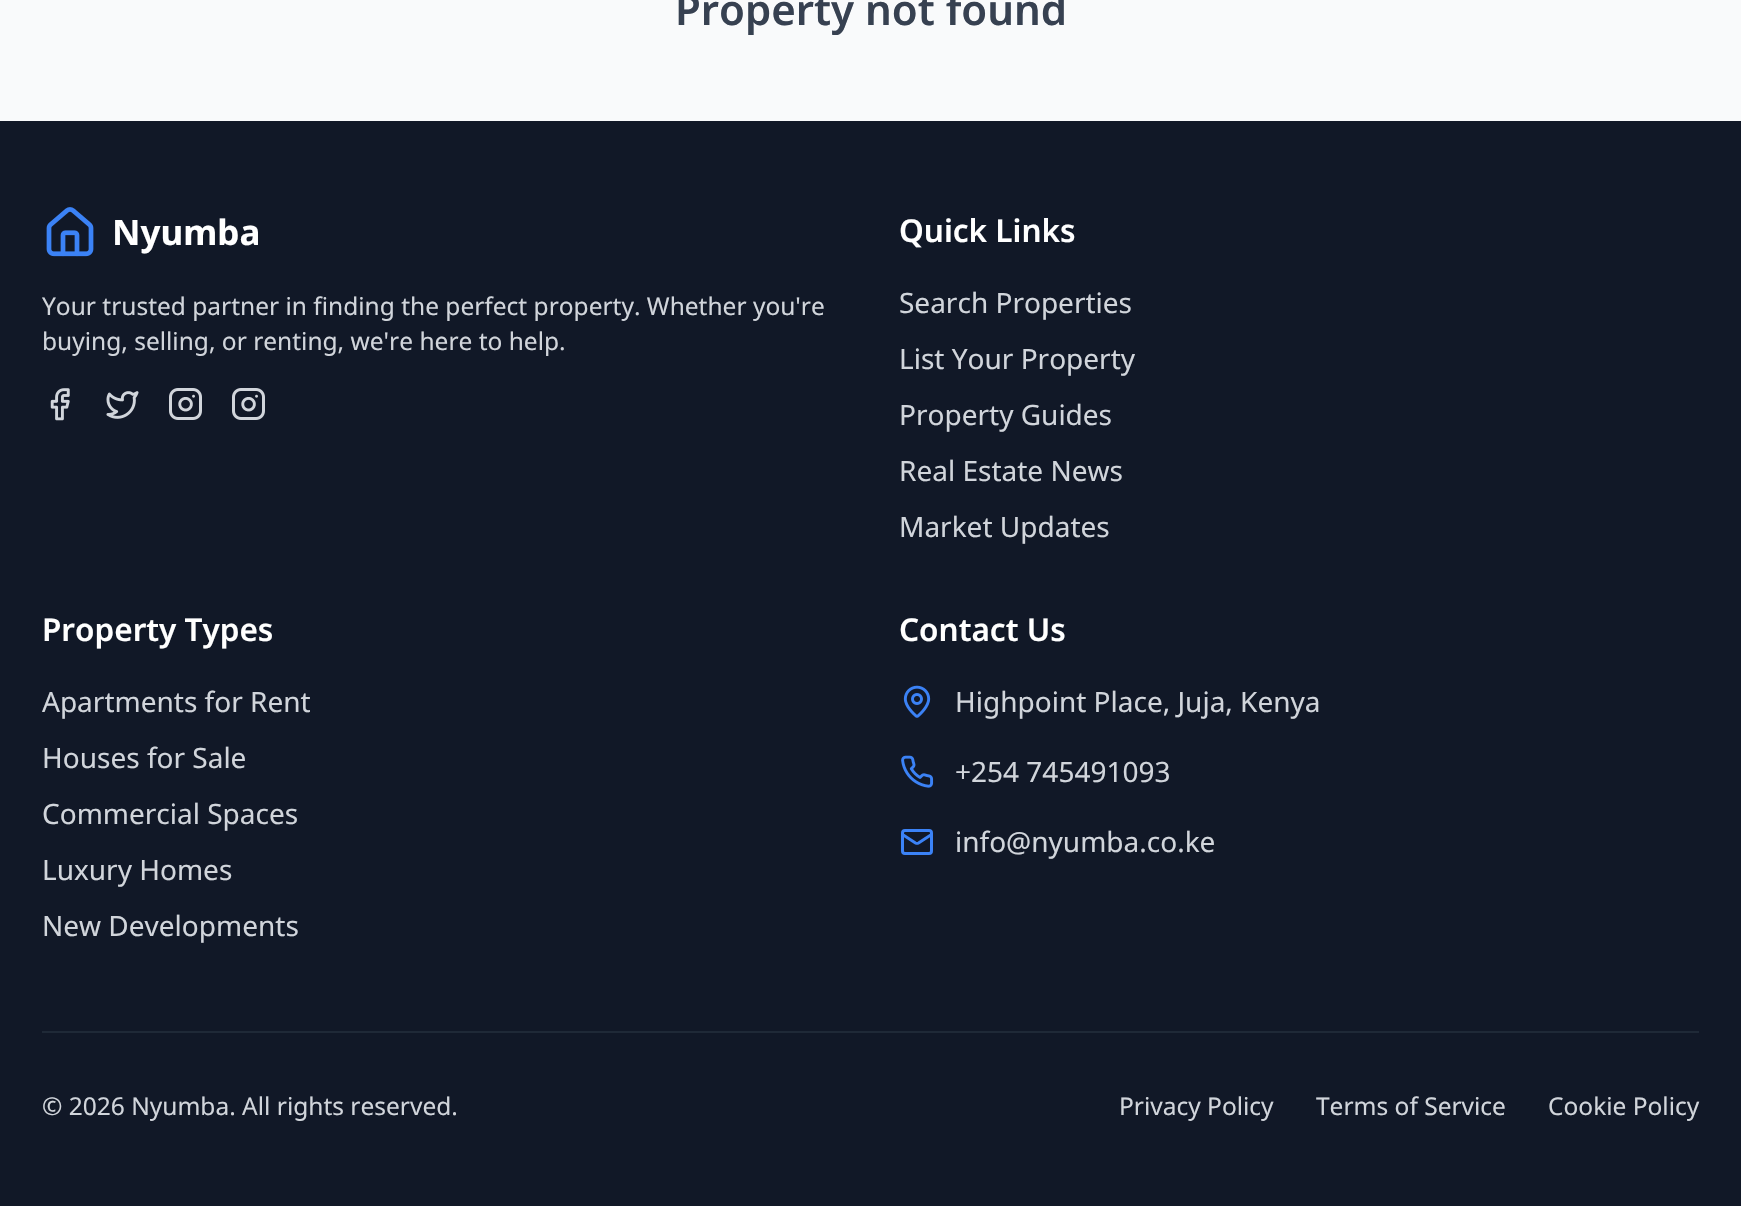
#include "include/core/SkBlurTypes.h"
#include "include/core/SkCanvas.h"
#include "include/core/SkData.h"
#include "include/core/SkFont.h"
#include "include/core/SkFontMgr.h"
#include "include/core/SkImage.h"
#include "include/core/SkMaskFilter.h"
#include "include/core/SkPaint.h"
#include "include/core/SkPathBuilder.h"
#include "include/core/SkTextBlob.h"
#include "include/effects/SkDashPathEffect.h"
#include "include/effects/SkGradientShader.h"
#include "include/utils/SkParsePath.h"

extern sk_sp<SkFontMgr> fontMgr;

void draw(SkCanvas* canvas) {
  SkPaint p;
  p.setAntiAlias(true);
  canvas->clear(SkColorSetRGB(249, 250, 251));
  p.setColor(SkColorSetRGB(17, 24, 39));
  canvas->drawRect(SkRect::MakeLTRB(0, 121, 1741, 1206), p);
  canvas->drawImageRect(SkImages::DeferredFromEncodedData(SkData::MakeFromFileName("images/1.png")), SkRect::MakeLTRB(46, 207, 94, 257), SkSamplingOptions());
  canvas->drawImageRect(SkImages::DeferredFromEncodedData(SkData::MakeFromFileName("images/2.png")), SkRect::MakeLTRB(50, 388, 70, 421), SkSamplingOptions());
  canvas->drawImageRect(SkImages::DeferredFromEncodedData(SkData::MakeFromFileName("images/3.png")), SkRect::MakeLTRB(106, 391, 139, 419), SkSamplingOptions());
  canvas->drawImageRect(SkImages::DeferredFromEncodedData(SkData::MakeFromFileName("images/4.png")), SkRect::MakeLTRB(169, 388, 202, 420), SkSamplingOptions());
  canvas->drawImageRect(SkImages::DeferredFromEncodedData(SkData::MakeFromFileName("images/4.png")), SkRect::MakeLTRB(232, 388, 265, 420), SkSamplingOptions());
  canvas->drawImageRect(SkImages::DeferredFromEncodedData(SkData::MakeFromFileName("images/5.png")), SkRect::MakeLTRB(903, 685, 931, 718), SkSamplingOptions());
  canvas->drawImageRect(SkImages::DeferredFromEncodedData(SkData::MakeFromFileName("images/6.png")), SkRect::MakeLTRB(901, 755, 934, 788), SkSamplingOptions());
  p.setStyle(SkPaint::kStroke_Style);
  p.setStrokeWidth(3);
  p.setColor(SkColorSetRGB(59, 130, 246));
  canvas->drawRoundRect(SkRect::MakeLTRB(902.5f, 830.5f, 931.5f, 853.5f), 2.5f, 2.5f, p);
  p.setStrokeWidth(2.9f);
  p.setStrokeCap(SkPaint::kRound_Cap);
  p.setStrokeJoin(SkPaint::kRound_Join);
  canvas->drawPath(SkPathBuilder().moveTo(931.5f, 834.5f).lineTo(918.5f, 843).cubicTo(917.5f, 843.5f, 916.5f, 843.5f, 915.5f, 843).lineTo(902.5f, 834.5f).detach(), p);
  p.setStyle(SkPaint::kFill_Style);
  p.setColor(SkColorSetRGB(31, 41, 55));
  canvas->drawRect(SkRect::MakeLTRB(42, 1031, 1699, 1033), p);
  SkFont font1(fontMgr->matchFamilyStyle("Noto Sans", SkFontStyle(600, SkFontStyle::kNormal_Width, SkFontStyle::kUpright_Slant)), 42);
  font1.setSubpixel(true);
  p.setColor(SkColorSetRGB(55, 65, 81));
  canvas->drawString("Property not found", 675, 25, font1, p);
  SkFont font2(fontMgr->matchFamilyStyle("Noto Sans", SkFontStyle::Bold()), 35);
  font2.setSubpixel(true);
  p.setColor(SK_ColorWHITE);
  canvas->drawString("Nyumba", 112, 245, font2, p);
  SkFont font3(fontMgr->matchFamilyStyle("Noto Sans", SkFontStyle::Normal()), 24.5f);
  font3.setSubpixel(true);
  p.setColor(SkColorSetRGB(209, 213, 219));
  canvas->drawString("Your trusted partner in finding the perfect property. Whether you're", 42, 315, font3, p);
  canvas->drawString("buying, selling, or renting, we're here to help.", 42, 350, font3, p);
  SkFont font4(fontMgr->matchFamilyStyle("Noto Sans", SkFontStyle(600, SkFontStyle::kNormal_Width, SkFontStyle::kUpright_Slant)), 31.5f);
  font4.setSubpixel(true);
  p.setColor(SK_ColorWHITE);
  canvas->drawString("Quick Links", 899, 242, font4, p);
  SkFont font5(fontMgr->matchFamilyStyle("Noto Sans", SkFontStyle::Normal()), 28);
  font5.setSubpixel(true);
  p.setColor(SkColorSetRGB(209, 213, 219));
  canvas->drawString("Search Properties", 899, 313, font5, p);
  canvas->drawString("List Your Property", 899, 369, font5, p);
  canvas->drawString("Property Guides", 899, 425, font5, p);
  canvas->drawString("Real Estate News", 899, 481, font5, p);
  canvas->drawString("Market Updates", 899, 537, font5, p);
  p.setColor(SK_ColorWHITE);
  canvas->drawString("Property Types", 42, 641, font4, p);
  p.setColor(SkColorSetRGB(209, 213, 219));
  canvas->drawString("Apartments for Rent", 42, 712, font5, p);
  canvas->drawString("Houses for Sale", 42, 768, font5, p);
  canvas->drawString("Commercial Spaces", 42, 824, font5, p);
  canvas->drawString("Luxury Homes", 42, 880, font5, p);
  canvas->drawString("New Developments", 42, 936, font5, p);
  p.setColor(SK_ColorWHITE);
  canvas->drawString("Contact Us", 899, 641, font4, p);
  p.setColor(SkColorSetRGB(209, 213, 219));
  canvas->drawString("Highpoint Place, Juja, Kenya", 955, 712, font5, p);
  canvas->drawString("+254 745491093", 955, 782, font5, p);
  canvas->drawString("info@nyumba.co.ke", 955, 852, font5, p);
  canvas->drawString("© 2026 Nyumba. All rights reserved.", 42, 1115, font3, p);
  canvas->drawString("Privacy Policy", 1119, 1115, font3, p);
  canvas->drawString("Terms of Service", 1316, 1115, font3, p);
  canvas->drawString("Cookie Policy", 1548, 1115, font3, p);
}
